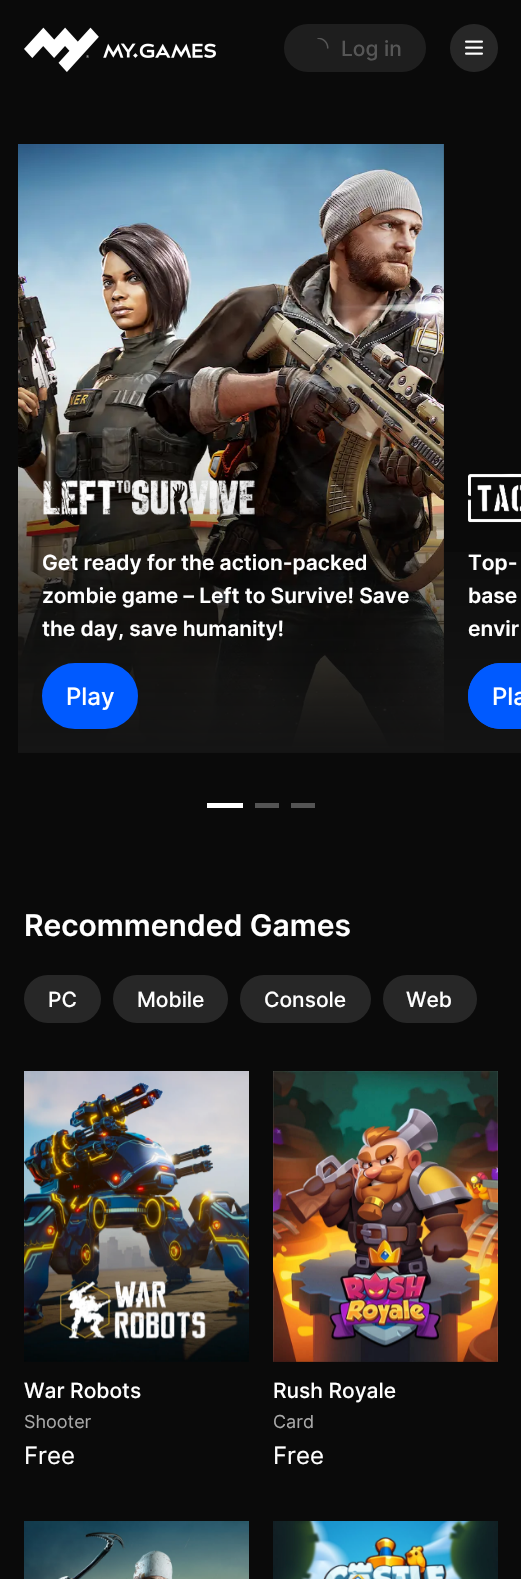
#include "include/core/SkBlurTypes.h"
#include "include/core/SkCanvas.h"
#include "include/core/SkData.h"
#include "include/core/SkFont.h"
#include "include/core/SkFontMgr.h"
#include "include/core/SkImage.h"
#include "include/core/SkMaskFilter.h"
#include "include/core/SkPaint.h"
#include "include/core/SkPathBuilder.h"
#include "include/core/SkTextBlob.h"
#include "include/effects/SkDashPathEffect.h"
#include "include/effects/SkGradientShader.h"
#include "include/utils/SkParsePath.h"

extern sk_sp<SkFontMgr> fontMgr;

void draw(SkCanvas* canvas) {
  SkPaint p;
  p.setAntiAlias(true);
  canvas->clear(SkColorSetRGB(10, 10, 10));
  canvas->drawImageRect(SkImages::DeferredFromEncodedData(SkData::MakeFromFileName("images/1.png")), SkRect::MakeLTRB(24, 27, 216, 72), SkSamplingOptions());
  p.setColor(SkColorSetRGB(30, 30, 30));
  canvas->drawRoundRect(SkRect::MakeLTRB(284, 24, 426, 72), 24, 24, p);
  canvas->drawImageRect(SkImages::DeferredFromEncodedData(SkData::MakeFromFileName("images/2.png")), SkRect::MakeLTRB(317, 38, 329, 49), SkSamplingOptions());
  p.setColor(SkColorSetRGB(39, 39, 39));
  canvas->drawCircle(474, 48, 24, p);
  canvas->drawImageRect(SkImages::DeferredFromEncodedData(SkData::MakeFromFileName("images/3.png")), SkRect::MakeLTRB(465, 40, 483, 55), SkSamplingOptions());
  canvas->drawImageRect(SkImages::DeferredFromEncodedData(SkData::MakeFromFileName("images/4.png")), SkRect::MakeLTRB(18, 144, 444, 751), SkSamplingOptions());
  {
    const SkColor colors[] = {SkColorSetARGB(0, 20, 20, 20), SkColorSetRGB(20, 20, 20)};
    const float stops[] = {0.56f, 1};
    const SkPoint ends[] = {{231, 144}, {231, 753}};
    p.setShader(SkGradientShader::MakeLinear(ends, colors, stops, 2, SkTileMode::kClamp));
    p.setAlpha(255);
  }
  canvas->drawRect(SkRect::MakeLTRB(18, 491, 444, 753), p);
  canvas->drawImageRect(SkImages::DeferredFromEncodedData(SkData::MakeFromFileName("images/5.png")), SkRect::MakeLTRB(43, 479, 255, 517), SkSamplingOptions());
  p.setShader(nullptr);
  p.setColor(SkColorSetRGB(0, 90, 255));
  canvas->drawRoundRect(SkRect::MakeLTRB(43, 664, 137, 728), 32, 32, p);
  p.setStyle(SkPaint::kStroke_Style);
  p.setStrokeWidth(2);
  canvas->drawRoundRect(SkRect::MakeLTRB(43, 664, 137, 728), 32, 32, p);
  p.setStyle(SkPaint::kFill_Style);
  {
    const SkColor colors[] = {SkColorSetRGB(10, 10, 10), SkColorSetRGB(20, 20, 20)};
    const float stops[] = {0.56f, 1};
    const SkPoint ends[] = {{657, 144}, {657, 753}};
    p.setShader(SkGradientShader::MakeLinear(ends, colors, stops, 2, SkTileMode::kClamp));
    p.setAlpha(255);
  }
  canvas->drawRect(SkRect::MakeLTRB(444, 552, 521, 753), p);
  canvas->drawImageRect(SkImages::DeferredFromEncodedData(SkData::MakeFromFileName("images/6.png")), SkRect::MakeLTRB(468, 473, 521, 523), SkSamplingOptions());
  p.setShader(nullptr);
  p.setColor(SkColorSetRGB(0, 90, 255));
  canvas->drawPath(SkPathBuilder().moveTo(501, 663).lineTo(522, 663).lineTo(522, 729).lineTo(501, 729).cubicTo(483, 729, 468, 714, 468, 696).cubicTo(468, 678, 483, 663, 501, 663).close().detach(), p);
  p.setStyle(SkPaint::kStroke_Style);
  canvas->drawRoundRect(SkRect::MakeLTRB(469, 664, 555, 728), 32, 32, p);
  p.setStyle(SkPaint::kFill_Style);
  p.setColor(SK_ColorWHITE);
  canvas->drawRect(SkRect::MakeLTRB(207, 803, 243, 808), p);
  p.setColor(SkColorSetRGB(84, 84, 84));
  canvas->drawRect(SkRect::MakeLTRB(255, 803, 279, 808), p);
  canvas->drawRect(SkRect::MakeLTRB(291, 803, 315, 808), p);
  p.setColor(SkColorSetRGB(39, 39, 39));
  canvas->drawRoundRect(SkRect::MakeLTRB(24, 975, 101, 1023), 24, 24, p);
  canvas->drawRoundRect(SkRect::MakeLTRB(113, 975, 228, 1023), 24, 24, p);
  canvas->drawRoundRect(SkRect::MakeLTRB(240, 975, 371, 1023), 24, 24, p);
  canvas->drawRoundRect(SkRect::MakeLTRB(383, 975, 477, 1023), 24, 24, p);
  canvas->drawImageRect(SkImages::DeferredFromEncodedData(SkData::MakeFromFileName("images/7.png")), SkRect::MakeLTRB(24, 1071, 249, 1362), SkSamplingOptions());
  canvas->drawImageRect(SkImages::DeferredFromEncodedData(SkData::MakeFromFileName("images/8.png")), SkRect::MakeLTRB(273, 1071, 498, 1362), SkSamplingOptions());
  canvas->drawImageRect(SkImages::DeferredFromEncodedData(SkData::MakeFromFileName("images/9.png")), SkRect::MakeLTRB(24, 1521, 249, 1579), SkSamplingOptions());
  canvas->drawImageRect(SkImages::DeferredFromEncodedData(SkData::MakeFromFileName("images/10.png")), SkRect::MakeLTRB(273, 1521, 498, 1579), SkSamplingOptions());
  SkFont font1(fontMgr->matchFamilyStyle("Inter", SkFontStyle(500, SkFontStyle::kNormal_Width, SkFontStyle::kUpright_Slant)), 21);
  font1.setSubpixel(true);
  p.setColor(SkColorSetRGB(86, 86, 86));
  canvas->drawString("Log in", 341, 56, font1, p);
  SkFont font2(fontMgr->matchFamilyStyle("Inter", SkFontStyle(600, SkFontStyle::kNormal_Width, SkFontStyle::kUpright_Slant)), 21);
  font2.setSubpixel(true);
  p.setColor(SK_ColorWHITE);
  canvas->drawString("Get ready for the action-packed", 42, 570, font2, p);
  canvas->drawString("zombie game – Left to Survive! Save", 42, 603, font2, p);
  canvas->drawString("the day, save humanity!", 42, 636, font2, p);
  SkFont font3(fontMgr->matchFamilyStyle("Inter", SkFontStyle(500, SkFontStyle::kNormal_Width, SkFontStyle::kUpright_Slant)), 24);
  font3.setSubpixel(true);
  canvas->drawString("Play", 66, 705, font3, p);
  canvas->drawString("Top-", 468, 570, font2, p);
  canvas->drawString("base", 468, 603, font2, p);
  canvas->drawString("envir", 468, 636, font2, p);
  canvas->drawString("Pla", 492, 705, font3, p);
  SkFont font4(fontMgr->matchFamilyStyle("Inter", SkFontStyle(600, SkFontStyle::kNormal_Width, SkFontStyle::kUpright_Slant)), 30);
  font4.setSubpixel(true);
  canvas->drawString("Recommended Games", 24, 936, font4, p);
  canvas->drawString("PC", 48, 1007, font1, p);
  canvas->drawString("Mobile", 137, 1007, font1, p);
  canvas->drawString("Console", 264, 1007, font1, p);
  canvas->drawString("Web", 406, 1007, font1, p);
  canvas->drawString("War Robots", 24, 1398, font1, p);
  SkFont font5(fontMgr->matchFamilyStyle("Inter", SkFontStyle::Normal()), 18);
  font5.setSubpixel(true);
  p.setColor(SkColorSetRGB(169, 169, 169));
  canvas->drawString("Shooter", 24, 1428, font5, p);
  SkFont font6(fontMgr->matchFamilyStyle("Inter", SkFontStyle::Normal()), 24);
  font6.setSubpixel(true);
  p.setColor(SK_ColorWHITE);
  canvas->drawString("Free", 24, 1464, font6, p);
  canvas->drawString("Rush Royale", 273, 1398, font1, p);
  p.setColor(SkColorSetRGB(169, 169, 169));
  canvas->drawString("Card", 273, 1428, font5, p);
  p.setColor(SK_ColorWHITE);
  canvas->drawString("Free", 273, 1464, font6, p);
}
